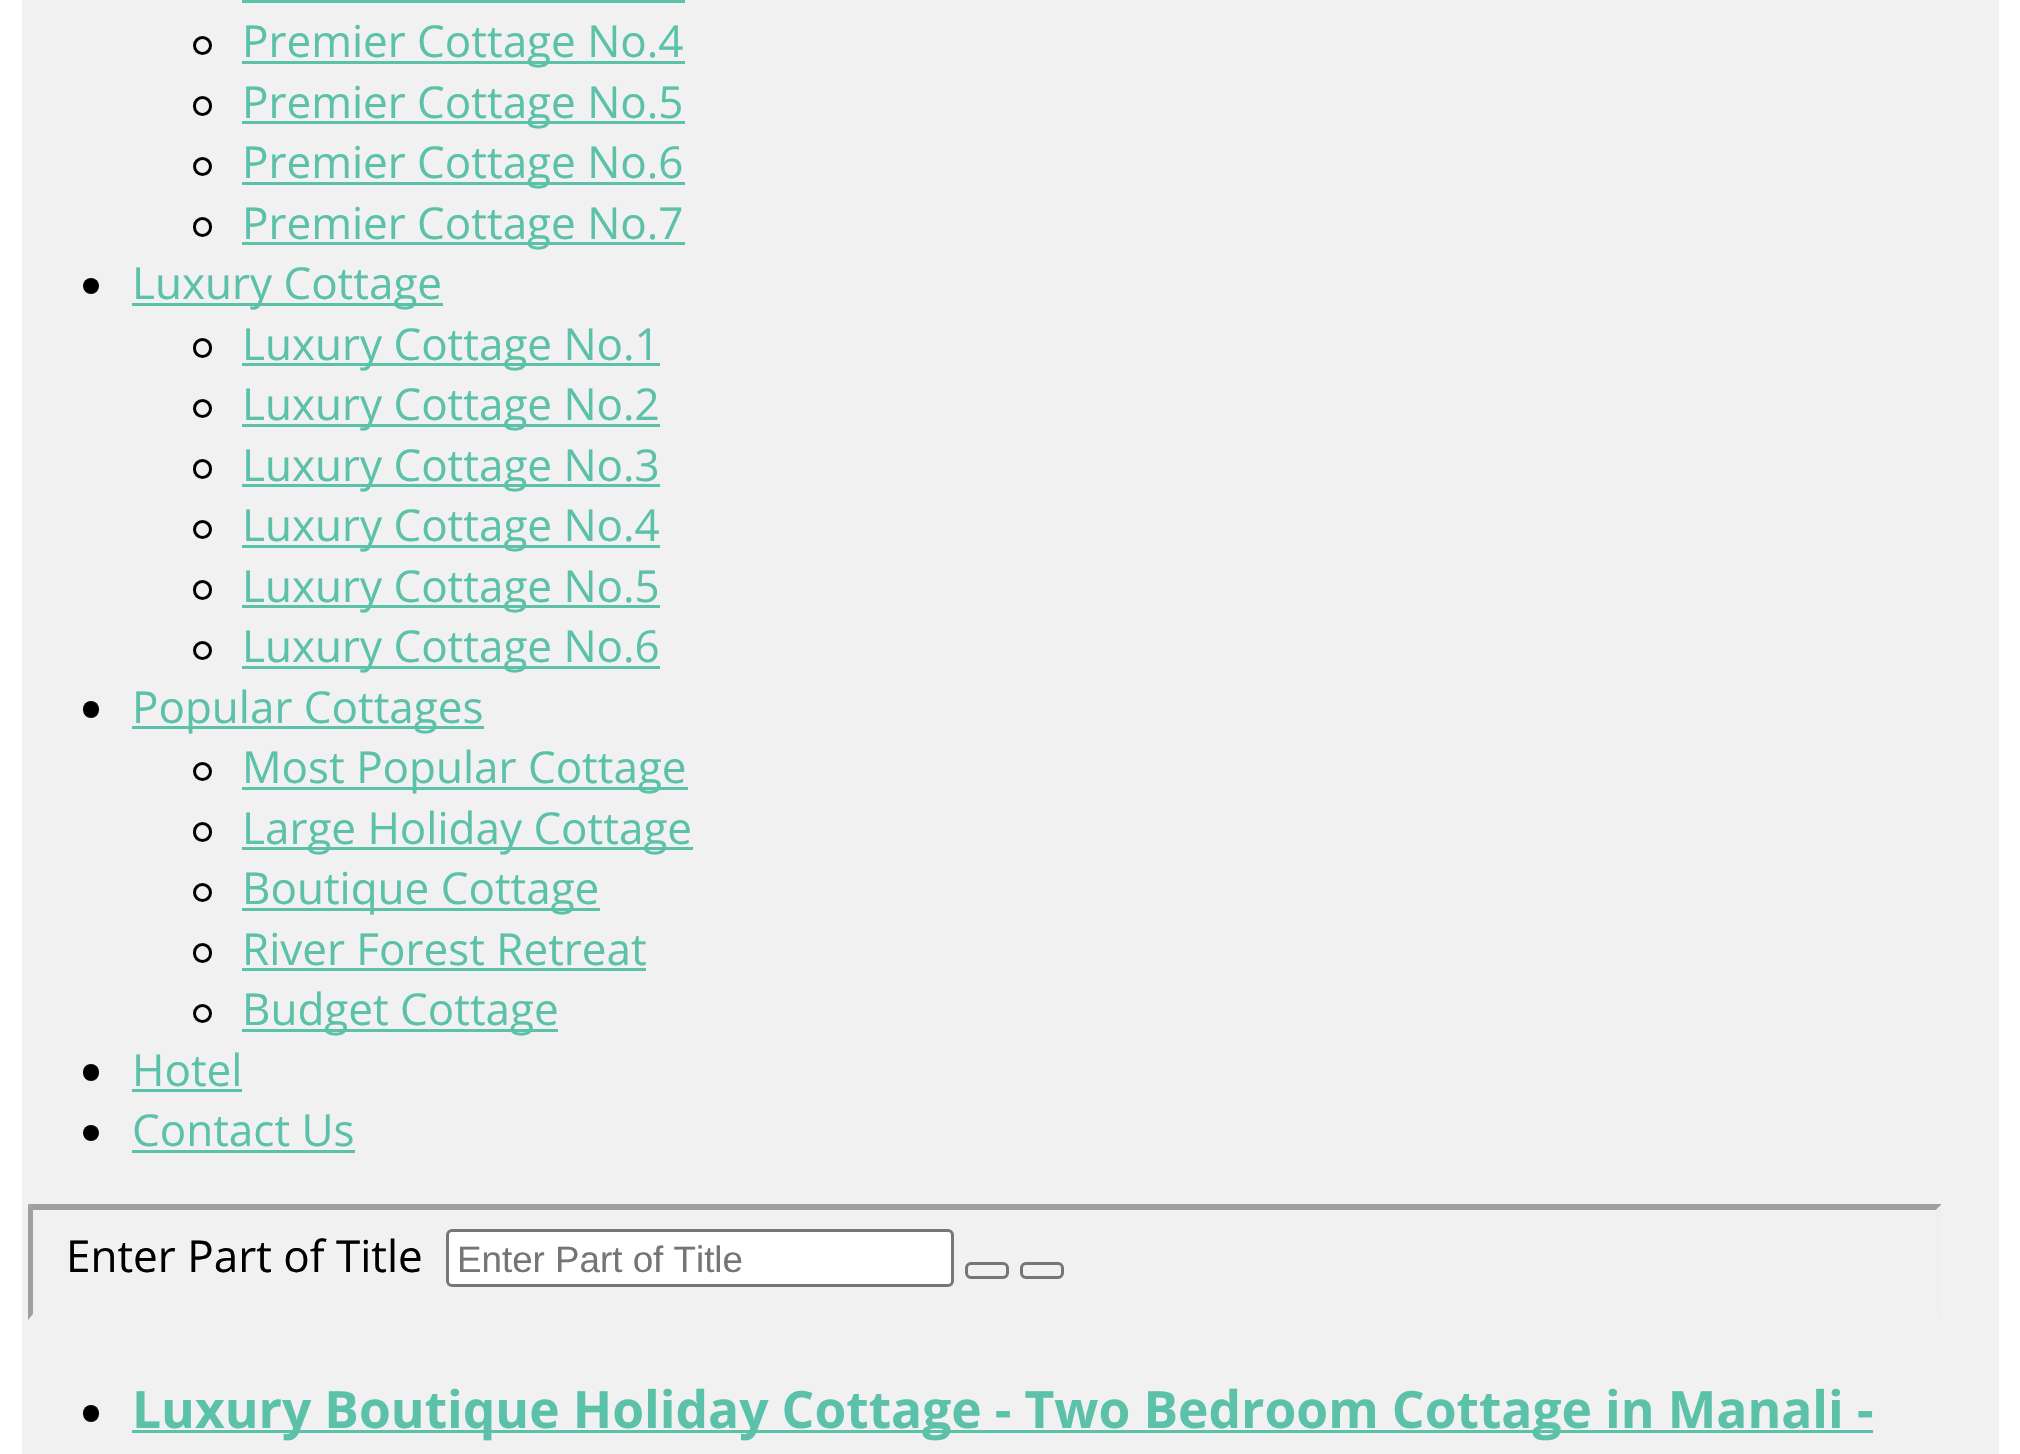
#include "include/core/SkBlurTypes.h"
#include "include/core/SkCanvas.h"
#include "include/core/SkData.h"
#include "include/core/SkFont.h"
#include "include/core/SkFontMgr.h"
#include "include/core/SkImage.h"
#include "include/core/SkMaskFilter.h"
#include "include/core/SkPaint.h"
#include "include/core/SkPathBuilder.h"
#include "include/core/SkTextBlob.h"
#include "include/effects/SkDashPathEffect.h"
#include "include/effects/SkGradientShader.h"
#include "include/utils/SkParsePath.h"

extern sk_sp<SkFontMgr> fontMgr;

void draw(SkCanvas* canvas) {
  SkPaint p;
  p.setAntiAlias(true);
  auto spacedText = [&](const char* s, float x, float y, const SkFont& font, const SkPaint& ink, float letter, float word) {
    std::vector<SkGlyphID> glyphs(font.countText(s, strlen(s), SkTextEncoding::kUTF8));
    std::vector<float> xs(glyphs.size());
    font.textToGlyphs(s, strlen(s), SkTextEncoding::kUTF8, glyphs);
    font.getXPos(glyphs, xs, x);
    float extra = 0;
    for (size_t i = 0; i < glyphs.size(); i++) {
      xs[i] += extra;
      extra += letter + word * (glyphs[i] == font.unicharToGlyph(' '));
    }
    canvas->drawTextBlob(SkTextBlob::MakeFromPosHGlyphs(glyphs, xs, y, font), 0, 0, ink);
  };
  canvas->clear(SK_ColorWHITE);
  p.setColor(SkColorSetRGB(241, 241, 241));
  canvas->drawRect(SkRect::MakeLTRB(22, 0, 1999, 1454), p);
  p.setColor(SkColorSetRGB(92, 193, 169));
  canvas->drawRect(SkRect::MakeLTRB(242, 0, 685, 3), p);
  p.setStyle(SkPaint::kStroke_Style);
  p.setStrokeWidth(3);
  p.setColor(SK_ColorBLACK);
  canvas->drawCircle(202.5f, 45.5f, 8, p);
  p.setStyle(SkPaint::kFill_Style);
  p.setColor(SkColorSetRGB(92, 193, 169));
  canvas->drawRect(SkRect::MakeLTRB(242, 61, 685, 64), p);
  p.setStyle(SkPaint::kStroke_Style);
  p.setColor(SK_ColorBLACK);
  canvas->drawRoundRect(SkRect::MakeLTRB(194.5f, 97.5f, 210.5f, 114.5f), 8, 8, p);
  p.setStyle(SkPaint::kFill_Style);
  p.setColor(SkColorSetRGB(92, 193, 169));
  canvas->drawRect(SkRect::MakeLTRB(242, 121, 685, 124), p);
  p.setStyle(SkPaint::kStroke_Style);
  p.setColor(SK_ColorBLACK);
  canvas->drawCircle(202.5f, 166.5f, 8, p);
  p.setStyle(SkPaint::kFill_Style);
  p.setColor(SkColorSetRGB(92, 193, 169));
  canvas->drawRect(SkRect::MakeLTRB(242, 182, 685, 185), p);
  p.setStyle(SkPaint::kStroke_Style);
  p.setColor(SK_ColorBLACK);
  canvas->drawRoundRect(SkRect::MakeLTRB(194.5f, 218.5f, 210.5f, 235.5f), 8, 8, p);
  p.setStyle(SkPaint::kFill_Style);
  p.setColor(SkColorSetRGB(92, 193, 169));
  canvas->drawRect(SkRect::MakeLTRB(242, 242, 685, 245), p);
  p.setColor(SK_ColorBLACK);
  canvas->drawCircle(91, 286, 8, p);
  p.setColor(SkColorSetRGB(92, 193, 169));
  canvas->drawRect(SkRect::MakeLTRB(132, 303, 443, 306), p);
  p.setStyle(SkPaint::kStroke_Style);
  p.setColor(SK_ColorBLACK);
  canvas->drawRoundRect(SkRect::MakeLTRB(194.5f, 339.5f, 210.5f, 356.5f), 8, 8, p);
  p.setStyle(SkPaint::kFill_Style);
  p.setColor(SkColorSetRGB(92, 193, 169));
  canvas->drawRect(SkRect::MakeLTRB(242, 363, 660, 366), p);
  p.setStyle(SkPaint::kStroke_Style);
  p.setColor(SK_ColorBLACK);
  canvas->drawCircle(202.5f, 408.5f, 8, p);
  p.setStyle(SkPaint::kFill_Style);
  p.setColor(SkColorSetRGB(92, 193, 169));
  canvas->drawRect(SkRect::MakeLTRB(242, 424, 660, 427), p);
  p.setStyle(SkPaint::kStroke_Style);
  p.setColor(SK_ColorBLACK);
  canvas->drawRoundRect(SkRect::MakeLTRB(194.5f, 460.5f, 210.5f, 477.5f), 8, 8, p);
  p.setStyle(SkPaint::kFill_Style);
  p.setColor(SkColorSetRGB(92, 193, 169));
  canvas->drawRect(SkRect::MakeLTRB(242, 484, 660, 487), p);
  p.setStyle(SkPaint::kStroke_Style);
  p.setColor(SK_ColorBLACK);
  canvas->drawCircle(202.5f, 529.5f, 8, p);
  p.setStyle(SkPaint::kFill_Style);
  p.setColor(SkColorSetRGB(92, 193, 169));
  canvas->drawRect(SkRect::MakeLTRB(242, 545, 660, 548), p);
  p.setStyle(SkPaint::kStroke_Style);
  p.setColor(SK_ColorBLACK);
  canvas->drawRoundRect(SkRect::MakeLTRB(194.5f, 581.5f, 210.5f, 598.5f), 8, 8, p);
  p.setStyle(SkPaint::kFill_Style);
  p.setColor(SkColorSetRGB(92, 193, 169));
  canvas->drawRect(SkRect::MakeLTRB(242, 605, 660, 608), p);
  p.setStyle(SkPaint::kStroke_Style);
  p.setColor(SK_ColorBLACK);
  canvas->drawCircle(202.5f, 650.5f, 8, p);
  p.setStyle(SkPaint::kFill_Style);
  p.setColor(SkColorSetRGB(92, 193, 169));
  canvas->drawRect(SkRect::MakeLTRB(242, 666, 660, 669), p);
  p.setColor(SK_ColorBLACK);
  canvas->drawRoundRect(SkRect::MakeLTRB(83, 701, 99, 718), 8, 8, p);
  p.setColor(SkColorSetRGB(92, 193, 169));
  canvas->drawRect(SkRect::MakeLTRB(132, 726, 484, 729), p);
  p.setStyle(SkPaint::kStroke_Style);
  p.setColor(SK_ColorBLACK);
  canvas->drawCircle(202.5f, 771.5f, 8, p);
  p.setStyle(SkPaint::kFill_Style);
  p.setColor(SkColorSetRGB(92, 193, 169));
  canvas->drawRect(SkRect::MakeLTRB(242, 787, 688, 790), p);
  p.setStyle(SkPaint::kStroke_Style);
  p.setColor(SK_ColorBLACK);
  canvas->drawRoundRect(SkRect::MakeLTRB(194.5f, 823.5f, 210.5f, 840.5f), 8, 8, p);
  p.setStyle(SkPaint::kFill_Style);
  p.setColor(SkColorSetRGB(92, 193, 169));
  canvas->drawRect(SkRect::MakeLTRB(242, 847, 693, 850), p);
  p.setStyle(SkPaint::kStroke_Style);
  p.setColor(SK_ColorBLACK);
  canvas->drawCircle(202.5f, 892.5f, 8, p);
  p.setStyle(SkPaint::kFill_Style);
  p.setColor(SkColorSetRGB(92, 193, 169));
  canvas->drawRect(SkRect::MakeLTRB(242, 908, 600, 911), p);
  p.setStyle(SkPaint::kStroke_Style);
  p.setColor(SK_ColorBLACK);
  canvas->drawRoundRect(SkRect::MakeLTRB(194.5f, 944.5f, 210.5f, 961.5f), 8, 8, p);
  p.setStyle(SkPaint::kFill_Style);
  p.setColor(SkColorSetRGB(92, 193, 169));
  canvas->drawRect(SkRect::MakeLTRB(242, 968, 646, 971), p);
  p.setStyle(SkPaint::kStroke_Style);
  p.setColor(SK_ColorBLACK);
  canvas->drawCircle(202.5f, 1013.5f, 8, p);
  p.setStyle(SkPaint::kFill_Style);
  p.setColor(SkColorSetRGB(92, 193, 169));
  canvas->drawRect(SkRect::MakeLTRB(242, 1029, 558, 1032), p);
  p.setColor(SK_ColorBLACK);
  canvas->drawRoundRect(SkRect::MakeLTRB(83, 1064, 99, 1081), 8, 8, p);
  p.setColor(SkColorSetRGB(92, 193, 169));
  canvas->drawRect(SkRect::MakeLTRB(132, 1089, 242, 1092), p);
  p.setColor(SK_ColorBLACK);
  canvas->drawCircle(91, 1133, 8, p);
  p.setColor(SkColorSetRGB(92, 193, 169));
  canvas->drawRect(SkRect::MakeLTRB(132, 1150, 355, 1153), p);
  p.setColor(SkColorSetRGB(159, 159, 159));
  canvas->drawPath(SkPathBuilder().moveTo(28, 1204).lineTo(1942, 1204).lineTo(1936, 1210).lineTo(33, 1210).close().detach(), p);
  p.setColor(SkColorSetRGB(239, 239, 239));
  canvas->drawPath(SkPathBuilder().moveTo(1942, 1204).lineTo(1942, 1320).lineTo(1936, 1314).lineTo(1936, 1210).close().detach(), p);
  p.setColor(SkColorSetRGB(159, 159, 159));
  canvas->drawPath(SkPathBuilder().moveTo(28, 1320).lineTo(28, 1204).lineTo(33, 1210).lineTo(33, 1314).close().detach(), p);
  p.setColor(SK_ColorWHITE);
  canvas->drawRoundRect(SkRect::MakeLTRB(447.5f, 1230.5f, 952.5f, 1285.5f), 4.5f, 4.5f, p);
  p.setStyle(SkPaint::kStroke_Style);
  p.setColor(SkColorSetRGB(118, 118, 118));
  canvas->drawRoundRect(SkRect::MakeLTRB(447.5f, 1230.5f, 952.5f, 1285.5f), 4.5f, 4.5f, p);
  canvas->drawRoundRect(SkRect::MakeLTRB(966.5f, 1263.5f, 1007.5f, 1277.5f), 4.5f, 4.5f, p);
  canvas->drawRoundRect(SkRect::MakeLTRB(1021.5f, 1263.5f, 1062.5f, 1277.5f), 4.5f, 4.5f, p);
  p.setStyle(SkPaint::kFill_Style);
  p.setColor(SK_ColorBLACK);
  canvas->drawRoundRect(SkRect::MakeLTRB(83, 1405, 99, 1422), 8, 8, p);
  p.setColor(SkColorSetRGB(92, 193, 169));
  canvas->drawRect(SkRect::MakeLTRB(132, 1430, 1873, 1433), p);
  SkFont font1(fontMgr->matchFamilyStyle("Open Sans", SkFontStyle::Normal()), 44);
  font1.setSubpixel(true);
  canvas->drawString("Premier Cottage No.4", 242, 57, font1, p);
  canvas->drawString("Premier Cottage No.5", 242, 118, font1, p);
  canvas->drawString("Premier Cottage No.6", 242, 178, font1, p);
  canvas->drawString("Premier Cottage No.7", 242, 239, font1, p);
  canvas->drawString("Luxury Cottage", 132, 299, font1, p);
  canvas->drawString("Luxury Cottage No.1", 242, 360, font1, p);
  canvas->drawString("Luxury Cottage No.2", 242, 420, font1, p);
  canvas->drawString("Luxury Cottage No.3", 242, 481, font1, p);
  canvas->drawString("Luxury Cottage No.4", 242, 541, font1, p);
  canvas->drawString("Luxury Cottage No.5", 242, 602, font1, p);
  canvas->drawString("Luxury Cottage No.6", 242, 662, font1, p);
  canvas->drawString("Popular Cottages", 132, 723, font1, p);
  canvas->drawString("Most Popular Cottage", 242, 783, font1, p);
  canvas->drawString("Large Holiday Cottage", 242, 844, font1, p);
  canvas->drawString("Boutique Cottage", 242, 904, font1, p);
  canvas->drawString("River Forest Retreat", 242, 965, font1, p);
  canvas->drawString("Budget Cottage", 242, 1025, font1, p);
  canvas->drawString("Hotel", 132, 1086, font1, p);
  canvas->drawString("Contact Us", 132, 1146, font1, p);
  p.setColor(SK_ColorBLACK);
  canvas->drawString("Enter Part of Title", 66, 1272, font1, p);
  SkFont font2(fontMgr->matchFamilyStyle("Liberation Sans", SkFontStyle::Normal()), 36.75f);
  font2.setSubpixel(true);
  p.setColor(SkColorSetRGB(117, 117, 117));
  canvas->drawString("Enter Part of Title", 457, 1272, font2, p);
  SkFont font3(fontMgr->matchFamilyStyle("Open Sans", SkFontStyle::Bold()), 51.5f);
  font3.setSubpixel(true);
  p.setColor(SkColorSetRGB(92, 193, 169));
  spacedText("Luxury Boutique Holiday Cottage - Two Bedroom Cottage in Manali -", 132, 1428, font3, p, 0, -0.25f);
}
